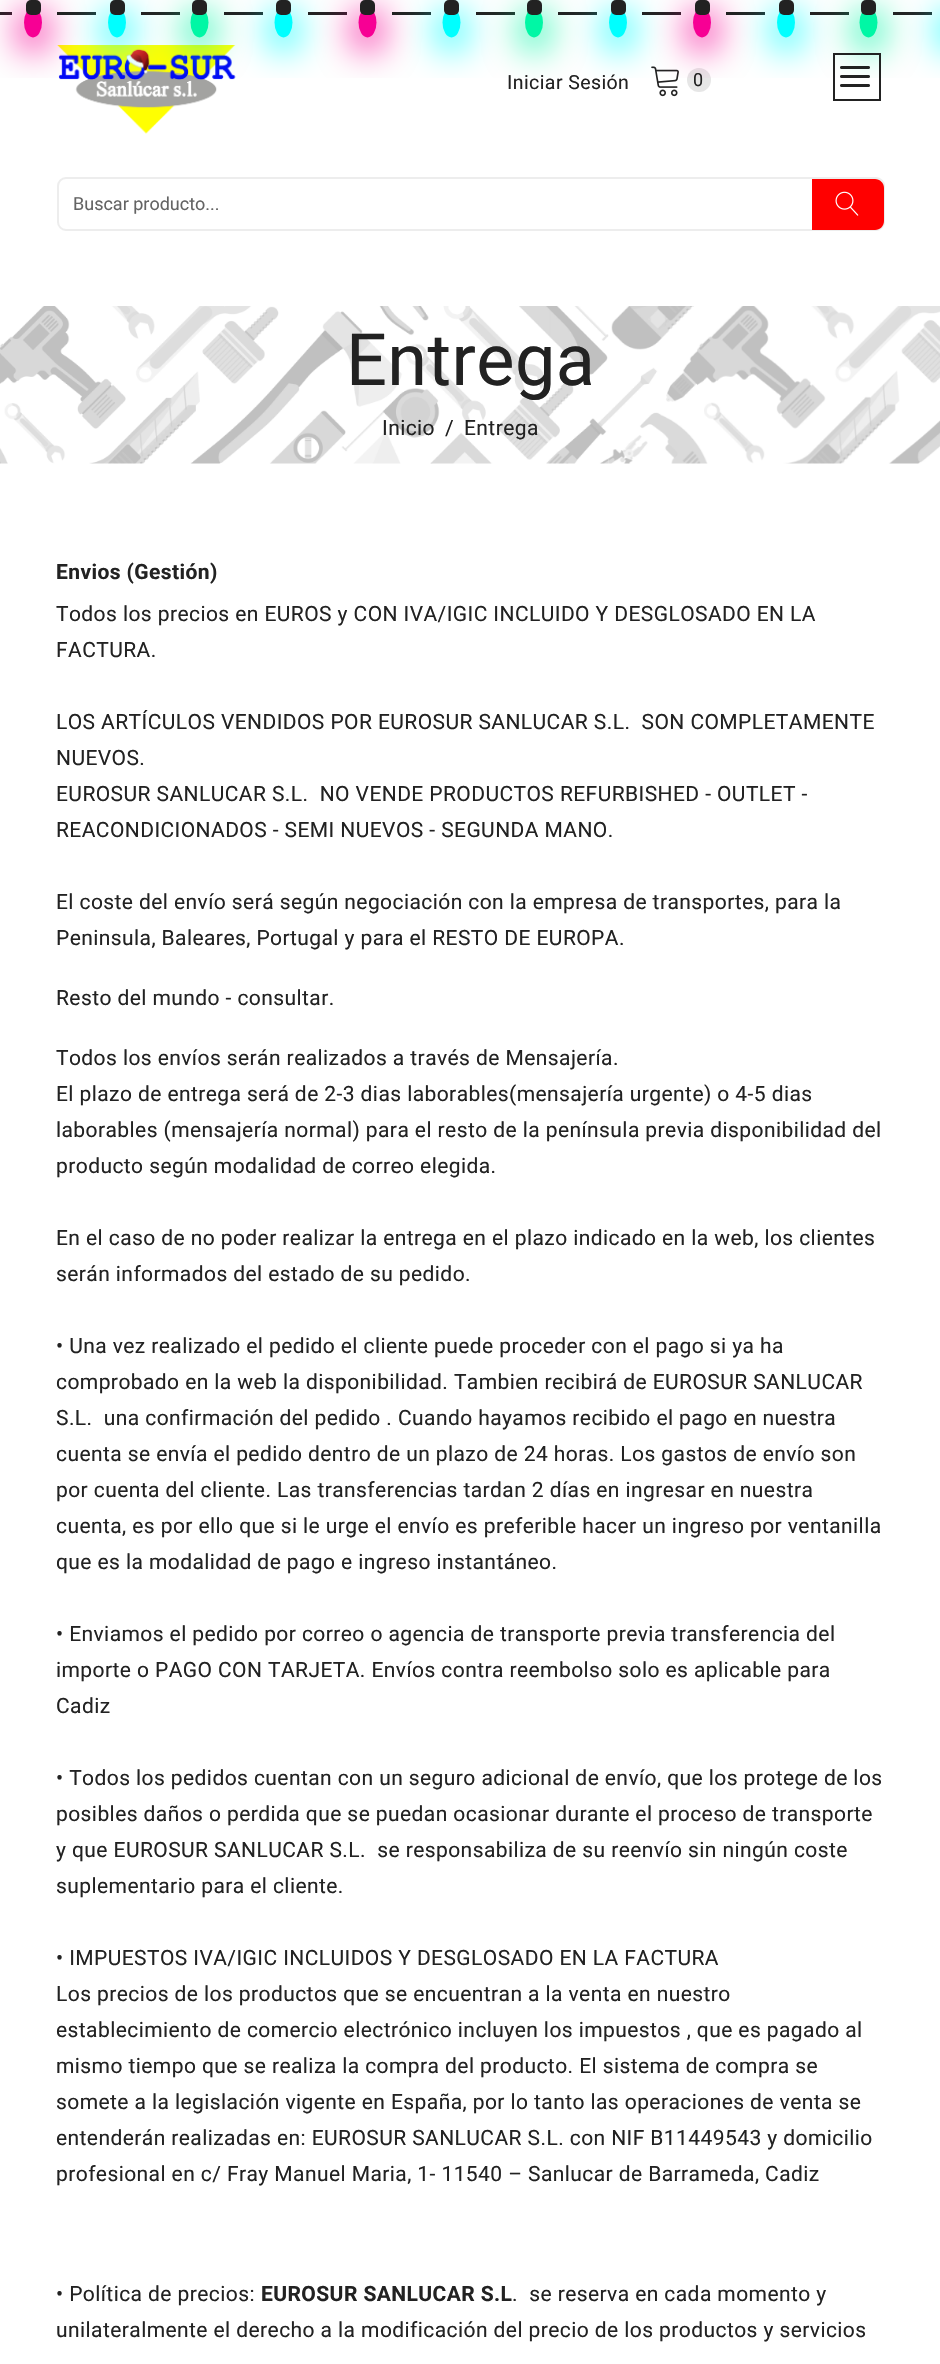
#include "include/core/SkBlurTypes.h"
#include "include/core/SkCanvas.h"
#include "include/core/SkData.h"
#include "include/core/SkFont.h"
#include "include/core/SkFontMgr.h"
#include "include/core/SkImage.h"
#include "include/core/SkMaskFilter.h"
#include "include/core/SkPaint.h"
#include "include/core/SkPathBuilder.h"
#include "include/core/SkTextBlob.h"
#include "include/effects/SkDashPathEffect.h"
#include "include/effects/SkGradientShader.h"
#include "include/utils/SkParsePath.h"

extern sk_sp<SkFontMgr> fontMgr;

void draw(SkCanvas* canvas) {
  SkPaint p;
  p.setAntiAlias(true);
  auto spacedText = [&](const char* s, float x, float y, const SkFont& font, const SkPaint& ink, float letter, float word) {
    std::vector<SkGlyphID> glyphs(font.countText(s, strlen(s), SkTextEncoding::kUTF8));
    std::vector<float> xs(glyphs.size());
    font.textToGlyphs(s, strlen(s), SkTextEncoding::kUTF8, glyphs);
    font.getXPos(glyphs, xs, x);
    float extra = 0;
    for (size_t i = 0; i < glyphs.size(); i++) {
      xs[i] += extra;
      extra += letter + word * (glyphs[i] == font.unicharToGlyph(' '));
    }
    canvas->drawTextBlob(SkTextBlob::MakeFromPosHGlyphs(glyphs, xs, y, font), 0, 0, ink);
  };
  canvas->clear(SK_ColorWHITE);
  p.setColor(SkColorSetRGB(34, 34, 34));
  canvas->drawRect(SkRect::MakeLTRB(0, 12, 12, 15), p);
  canvas->drawImageRect(SkImages::DeferredFromEncodedData(SkData::MakeFromFileName("images/1.png")), SkRect::MakeLTRB(57, 45, 236, 134), SkSamplingOptions());
  canvas->save();
  canvas->clipRect(SkRect::MakeLTRB(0, 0, 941, 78));
  p.setColor(SkColorSetRGB(247, 0, 148));
  p.setMaskFilter(SkMaskFilter::MakeBlur(kNormal_SkBlurStyle, 18));
  canvas->drawRoundRect(SkRect::MakeLTRB(20, 11, 47, 50), 13.5f, 13.5f, p);
  p.setMaskFilter(nullptr);
  canvas->restore();
  canvas->drawOval(SkRect::MakeLTRB(24, 7.5f, 42, 37.5f), p);
  p.setColor(SkColorSetRGB(34, 34, 34));
  canvas->drawRoundRect(SkRect::MakeLTRB(26, 0, 41, 15), 5, 5, p);
  canvas->drawRect(SkRect::MakeLTRB(57, 12, 96, 15), p);
  canvas->save();
  canvas->clipRect(SkRect::MakeLTRB(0, 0, 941, 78));
  p.setColor(SkColorSetRGB(0, 255, 255));
  p.setMaskFilter(SkMaskFilter::MakeBlur(kNormal_SkBlurStyle, 18));
  canvas->drawRoundRect(SkRect::MakeLTRB(104, 11, 131, 50), 13.5f, 13.5f, p);
  p.setMaskFilter(nullptr);
  canvas->restore();
  canvas->drawOval(SkRect::MakeLTRB(108, 7.5f, 126, 37.5f), p);
  p.setColor(SkColorSetRGB(34, 34, 34));
  canvas->drawRoundRect(SkRect::MakeLTRB(110, 0, 125, 15), 5, 5, p);
  canvas->drawRect(SkRect::MakeLTRB(141, 12, 180, 15), p);
  canvas->save();
  canvas->clipRect(SkRect::MakeLTRB(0, 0, 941, 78));
  p.setColor(SkColorSetRGB(0, 247, 165));
  p.setMaskFilter(SkMaskFilter::MakeBlur(kNormal_SkBlurStyle, 18));
  canvas->drawRoundRect(SkRect::MakeLTRB(186, 11, 213, 50), 13.5f, 13.5f, p);
  p.setMaskFilter(nullptr);
  canvas->restore();
  canvas->drawOval(SkRect::MakeLTRB(190.5f, 7.5f, 208.5f, 37.5f), p);
  p.setColor(SkColorSetRGB(34, 34, 34));
  canvas->drawRoundRect(SkRect::MakeLTRB(192, 0, 207, 15), 5, 5, p);
  canvas->drawRect(SkRect::MakeLTRB(224, 12, 263, 15), p);
  canvas->save();
  canvas->clipRect(SkRect::MakeLTRB(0, 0, 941, 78));
  p.setColor(SkColorSetRGB(0, 255, 255));
  p.setMaskFilter(SkMaskFilter::MakeBlur(kNormal_SkBlurStyle, 18));
  canvas->drawRoundRect(SkRect::MakeLTRB(270, 11, 297, 50), 13.5f, 13.5f, p);
  p.setMaskFilter(nullptr);
  canvas->restore();
  canvas->drawOval(SkRect::MakeLTRB(274.5f, 7.5f, 292.5f, 37.5f), p);
  p.setColor(SkColorSetRGB(34, 34, 34));
  canvas->drawRoundRect(SkRect::MakeLTRB(276, 0, 291, 15), 5, 5, p);
  canvas->drawRect(SkRect::MakeLTRB(308, 12, 347, 15), p);
  canvas->save();
  canvas->clipRect(SkRect::MakeLTRB(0, 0, 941, 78));
  p.setColor(SkColorSetRGB(247, 0, 148));
  p.setMaskFilter(SkMaskFilter::MakeBlur(kNormal_SkBlurStyle, 18));
  canvas->drawRoundRect(SkRect::MakeLTRB(354, 11, 381, 50), 13.5f, 13.5f, p);
  p.setMaskFilter(nullptr);
  canvas->restore();
  canvas->drawOval(SkRect::MakeLTRB(358.5f, 7.5f, 376.5f, 37.5f), p);
  p.setColor(SkColorSetRGB(34, 34, 34));
  canvas->drawRoundRect(SkRect::MakeLTRB(360, 0, 375, 15), 5, 5, p);
  canvas->drawRect(SkRect::MakeLTRB(392, 12, 431, 15), p);
  canvas->save();
  canvas->clipRect(SkRect::MakeLTRB(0, 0, 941, 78));
  p.setColor(SkColorSetRGB(0, 255, 255));
  p.setMaskFilter(SkMaskFilter::MakeBlur(kNormal_SkBlurStyle, 18));
  canvas->drawRoundRect(SkRect::MakeLTRB(438, 11, 465, 50), 13.5f, 13.5f, p);
  p.setMaskFilter(nullptr);
  canvas->restore();
  canvas->drawOval(SkRect::MakeLTRB(442.5f, 7.5f, 460.5f, 37.5f), p);
  p.setColor(SkColorSetRGB(34, 34, 34));
  canvas->drawRoundRect(SkRect::MakeLTRB(444, 0, 459, 15), 5, 5, p);
  canvas->drawRect(SkRect::MakeLTRB(476, 12, 515, 15), p);
  canvas->save();
  canvas->clipRect(SkRect::MakeLTRB(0, 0, 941, 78));
  p.setColor(SkColorSetRGB(0, 247, 165));
  p.setMaskFilter(SkMaskFilter::MakeBlur(kNormal_SkBlurStyle, 18));
  canvas->drawRoundRect(SkRect::MakeLTRB(521, 11, 548, 50), 13.5f, 13.5f, p);
  p.setMaskFilter(nullptr);
  canvas->restore();
  canvas->drawOval(SkRect::MakeLTRB(525, 7.5f, 543, 37.5f), p);
  p.setColor(SkColorSetRGB(34, 34, 34));
  canvas->drawRoundRect(SkRect::MakeLTRB(527, 0, 542, 15), 5, 5, p);
  canvas->drawRect(SkRect::MakeLTRB(558, 12, 597, 15), p);
  canvas->drawImageRect(SkImages::DeferredFromEncodedData(SkData::MakeFromFileName("images/2.png")), SkRect::MakeLTRB(651, 66, 679, 97), SkSamplingOptions());
  canvas->save();
  canvas->clipRect(SkRect::MakeLTRB(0, 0, 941, 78));
  p.setColor(SkColorSetRGB(0, 255, 255));
  p.setMaskFilter(SkMaskFilter::MakeBlur(kNormal_SkBlurStyle, 18));
  canvas->drawRoundRect(SkRect::MakeLTRB(605, 11, 632, 50), 13.5f, 13.5f, p);
  p.setMaskFilter(nullptr);
  canvas->restore();
  canvas->drawOval(SkRect::MakeLTRB(609, 7.5f, 627, 37.5f), p);
  p.setColor(SkColorSetRGB(34, 34, 34));
  canvas->drawRoundRect(SkRect::MakeLTRB(611, 0, 626, 15), 5, 5, p);
  canvas->drawRect(SkRect::MakeLTRB(642, 12, 681, 15), p);
  p.setColor(SkColorSetRGB(230, 230, 230));
  canvas->drawCircle(699, 80, 12, p);
  canvas->save();
  canvas->clipRect(SkRect::MakeLTRB(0, 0, 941, 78));
  p.setColor(SkColorSetRGB(247, 0, 148));
  p.setMaskFilter(SkMaskFilter::MakeBlur(kNormal_SkBlurStyle, 18));
  canvas->drawRoundRect(SkRect::MakeLTRB(689, 11, 716, 50), 13.5f, 13.5f, p);
  p.setMaskFilter(nullptr);
  canvas->restore();
  canvas->drawOval(SkRect::MakeLTRB(693, 7.5f, 711, 37.5f), p);
  p.setColor(SkColorSetRGB(34, 34, 34));
  canvas->drawRoundRect(SkRect::MakeLTRB(695, 0, 710, 15), 5, 5, p);
  canvas->drawRect(SkRect::MakeLTRB(726, 12, 765, 15), p);
  canvas->save();
  canvas->clipRect(SkRect::MakeLTRB(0, 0, 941, 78));
  p.setColor(SkColorSetRGB(0, 255, 255));
  p.setMaskFilter(SkMaskFilter::MakeBlur(kNormal_SkBlurStyle, 18));
  canvas->drawRoundRect(SkRect::MakeLTRB(773, 11, 800, 50), 13.5f, 13.5f, p);
  p.setMaskFilter(nullptr);
  canvas->restore();
  canvas->drawOval(SkRect::MakeLTRB(777, 7.5f, 795, 37.5f), p);
  p.setColor(SkColorSetRGB(34, 34, 34));
  canvas->drawRoundRect(SkRect::MakeLTRB(779, 0, 794, 15), 5, 5, p);
  canvas->drawRect(SkRect::MakeLTRB(810, 12, 849, 15), p);
  canvas->save();
  canvas->clipRect(SkRect::MakeLTRB(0, 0, 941, 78));
  p.setColor(SkColorSetRGB(0, 247, 165));
  p.setMaskFilter(SkMaskFilter::MakeBlur(kNormal_SkBlurStyle, 18));
  canvas->drawRoundRect(SkRect::MakeLTRB(855, 11, 882, 50), 13.5f, 13.5f, p);
  p.setMaskFilter(nullptr);
  canvas->restore();
  canvas->drawOval(SkRect::MakeLTRB(859.5f, 7.5f, 877.5f, 37.5f), p);
  p.setColor(SkColorSetRGB(34, 34, 34));
  canvas->drawRoundRect(SkRect::MakeLTRB(861, 0, 876, 15), 5, 5, p);
  canvas->drawRect(SkRect::MakeLTRB(893, 12, 932, 15), p);
  canvas->save();
  canvas->clipRect(SkRect::MakeLTRB(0, 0, 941, 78));
  p.setColor(SkColorSetRGB(0, 255, 255));
  p.setMaskFilter(SkMaskFilter::MakeBlur(kNormal_SkBlurStyle, 18));
  canvas->drawRoundRect(SkRect::MakeLTRB(939, 11, 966, 50), 13.5f, 13.5f, p);
  p.setMaskFilter(nullptr);
  canvas->restore();
  p.setStyle(SkPaint::kStroke_Style);
  p.setStrokeWidth(2);
  p.setColor(SkColorSetRGB(237, 237, 237));
  canvas->drawRoundRect(SkRect::MakeLTRB(58, 178, 884, 230), 8, 8, p);
  p.setStyle(SkPaint::kFill_Style);
  p.setColor(SkColorSetRGB(255, 0, 0));
  canvas->drawPath(SkPathBuilder().moveTo(812, 179).lineTo(875, 179).cubicTo(880, 179, 884, 183, 884, 188).lineTo(884, 221).cubicTo(884, 226, 880, 230, 875, 230).lineTo(812, 230).close().detach(), p);
  canvas->drawImageRect(SkImages::DeferredFromEncodedData(SkData::MakeFromFileName("images/3.png")), SkRect::MakeLTRB(835, 191, 859, 216), SkSamplingOptions());
  p.setStyle(SkPaint::kStroke_Style);
  p.setColor(SkColorSetRGB(34, 34, 34));
  canvas->drawRect(SkRect::MakeLTRB(834, 54, 880, 100), p);
  canvas->drawImageRect(SkImages::DeferredFromEncodedData(SkData::MakeFromFileName("images/4.png")), SkRect::MakeLTRB(840, 66, 870, 87), SkSamplingOptions());
  canvas->drawImageRect(SkImages::DeferredFromEncodedData(SkData::MakeFromFileName("images/5.png")), SkRect::MakeLTRB(0, 306, 940, 464), SkSamplingOptions());
  SkFont font1(fontMgr->matchFamilyStyle("Roboto", SkFontStyle::Normal()), 19.5f);
  font1.setSubpixel(true);
  p.setStyle(SkPaint::kFill_Style);
  spacedText("Iniciar Sesión", 507, 89, font1, p, 0.42f, 0);
  SkFont font2(fontMgr->matchFamilyStyle("Roboto", SkFontStyle::Normal()), 18);
  font2.setSubpixel(true);
  spacedText("0", 693, 86, font2, p, 0.42f, 0);
  p.setColor(SkColorSetRGB(100, 100, 100));
  canvas->drawString("Buscar producto...", 73, 210, font2, p);
  SkFont font3(fontMgr->matchFamilyStyle("Roboto", SkFontStyle::Normal()), 72);
  font3.setSubpixel(true);
  p.setColor(SkColorSetRGB(34, 34, 34));
  spacedText("Entrega", 346, 385, font3, p, 0.42f, 0);
  SkFont font4(fontMgr->matchFamilyStyle("Roboto", SkFontStyle::Normal()), 21);
  font4.setSubpixel(true);
  spacedText("Inicio", 382, 435, font4, p, 0.42f, 0);
  spacedText("/", 445, 435, font4, p, 0.42f, 0);
  spacedText("Entrega", 464, 435, font4, p, 0.42f, 0);
  SkFont font5(fontMgr->matchFamilyStyle("Roboto", SkFontStyle::Bold()), 21);
  font5.setSubpixel(true);
  spacedText("Envios (Gestión)", 56, 579, font5, p, 0.42f, 0);
  spacedText("Todos los precios en EUROS y CON IVA/IGIC INCLUIDO Y DESGLOSADO EN LA", 56, 621, font4, p, 0.42f, 0);
  spacedText("FACTURA.", 56, 657, font4, p, 0.42f, 0);
  spacedText("LOS ARTÍCULOS VENDIDOS POR EUROSUR SANLUCAR S.L.  SON COMPLETAMENTE", 56, 729, font4, p, 0.42f, 0);
  spacedText("NUEVOS.", 56, 765, font4, p, 0.42f, 0);
  spacedText("EUROSUR SANLUCAR S.L.  NO VENDE PRODUCTOS REFURBISHED - OUTLET -", 56, 801, font4, p, 0.42f, 0);
  spacedText("REACONDICIONADOS - SEMI NUEVOS - SEGUNDA MANO.", 56, 837, font4, p, 0.42f, 0);
  spacedText("El coste del envío será según negociación con la empresa de transportes, para la", 56, 909, font4, p, 0.42f, 0);
  spacedText("Peninsula, Baleares, Portugal y para el RESTO DE EUROPA.", 56, 945, font4, p, 0.42f, 0);
  spacedText("Resto del mundo - consultar.", 56, 1005, font4, p, 0.42f, 0);
  spacedText("Todos los envíos serán realizados a través de Mensajería.", 56, 1065, font4, p, 0.42f, 0);
  spacedText("El plazo de entrega será de 2-3 dias laborables(mensajería urgente) o 4-5 dias", 56, 1101, font4, p, 0.42f, 0);
  spacedText("laborables (mensajería normal) para el resto de la península previa disponibilidad del", 56, 1137, font4, p, 0.42f, 0);
  spacedText("producto según modalidad de correo elegida.", 56, 1173, font4, p, 0.42f, 0);
  spacedText("En el caso de no poder realizar la entrega en el plazo indicado en la web, los clientes", 56, 1245, font4, p, 0.42f, 0);
  spacedText("serán informados del estado de su pedido.", 56, 1281, font4, p, 0.42f, 0);
  spacedText("• Una vez realizado el pedido el cliente puede proceder con el pago si ya ha", 56, 1353, font4, p, 0.42f, 0);
  spacedText("comprobado en la web la disponibilidad. Tambien recibirá de EUROSUR SANLUCAR", 56, 1389, font4, p, 0.42f, 0);
  spacedText("S.L.  una confirmación del pedido . Cuando hayamos recibido el pago en nuestra", 56, 1425, font4, p, 0.42f, 0);
  spacedText("cuenta se envía el pedido dentro de un plazo de 24 horas. Los gastos de envío son", 56, 1461, font4, p, 0.42f, 0);
  spacedText("por cuenta del cliente. Las transferencias tardan 2 días en ingresar en nuestra", 56, 1497, font4, p, 0.42f, 0);
  spacedText("cuenta, es por ello que si le urge el envío es preferible hacer un ingreso por ventanilla", 56, 1533, font4, p, 0.42f, 0);
  spacedText("que es la modalidad de pago e ingreso instantáneo.", 56, 1569, font4, p, 0.42f, 0);
  spacedText("• Enviamos el pedido por correo o agencia de transporte previa transferencia del", 56, 1641, font4, p, 0.42f, 0);
  spacedText("importe o PAGO CON TARJETA. Envíos contra reembolso solo es aplicable para", 56, 1677, font4, p, 0.42f, 0);
  spacedText("Cadiz", 56, 1713, font4, p, 0.42f, 0);
  spacedText("• Todos los pedidos cuentan con un seguro adicional de envío, que los protege de los", 56, 1785, font4, p, 0.42f, 0);
  spacedText("posibles daños o perdida que se puedan ocasionar durante el proceso de transporte", 56, 1821, font4, p, 0.42f, 0);
  spacedText("y que EUROSUR SANLUCAR S.L.  se responsabiliza de su reenvío sin ningún coste", 56, 1857, font4, p, 0.42f, 0);
  spacedText("suplementario para el cliente.", 56, 1893, font4, p, 0.42f, 0);
  spacedText("• IMPUESTOS IVA/IGIC INCLUIDOS Y DESGLOSADO EN LA FACTURA", 56, 1965, font4, p, 0.42f, 0);
  spacedText("Los precios de los productos que se encuentran a la venta en nuestro", 56, 2001, font4, p, 0.42f, 0);
  spacedText("establecimiento de comercio electrónico incluyen los impuestos , que es pagado al", 56, 2037, font4, p, 0.42f, 0);
  spacedText("mismo tiempo que se realiza la compra del producto. El sistema de compra se", 56, 2073, font4, p, 0.42f, 0);
  spacedText("somete a la legislación vigente en España, por lo tanto las operaciones de venta se", 56, 2109, font4, p, 0.42f, 0);
  spacedText("entenderán realizadas en: EUROSUR SANLUCAR S.L. con NIF B11449543 y domicilio", 56, 2145, font4, p, 0.42f, 0);
  spacedText("profesional en c/ Fray Manuel Maria, 1- 11540 – Sanlucar de Barrameda, Cadiz", 56, 2181, font4, p, 0.42f, 0);
  spacedText("• Política de precios:", 56, 2301, font4, p, 0.42f, 0);
  spacedText("EUROSUR SANLUCAR S.L", 261, 2301, font5, p, 0.42f, 0);
  spacedText(".  se reserva en cada momento y", 512, 2301, font4, p, 0.42f, 0);
  spacedText("unilateralmente el derecho a la modificación del precio de los productos y servicios", 56, 2337, font4, p, 0.42f, 0);
}
